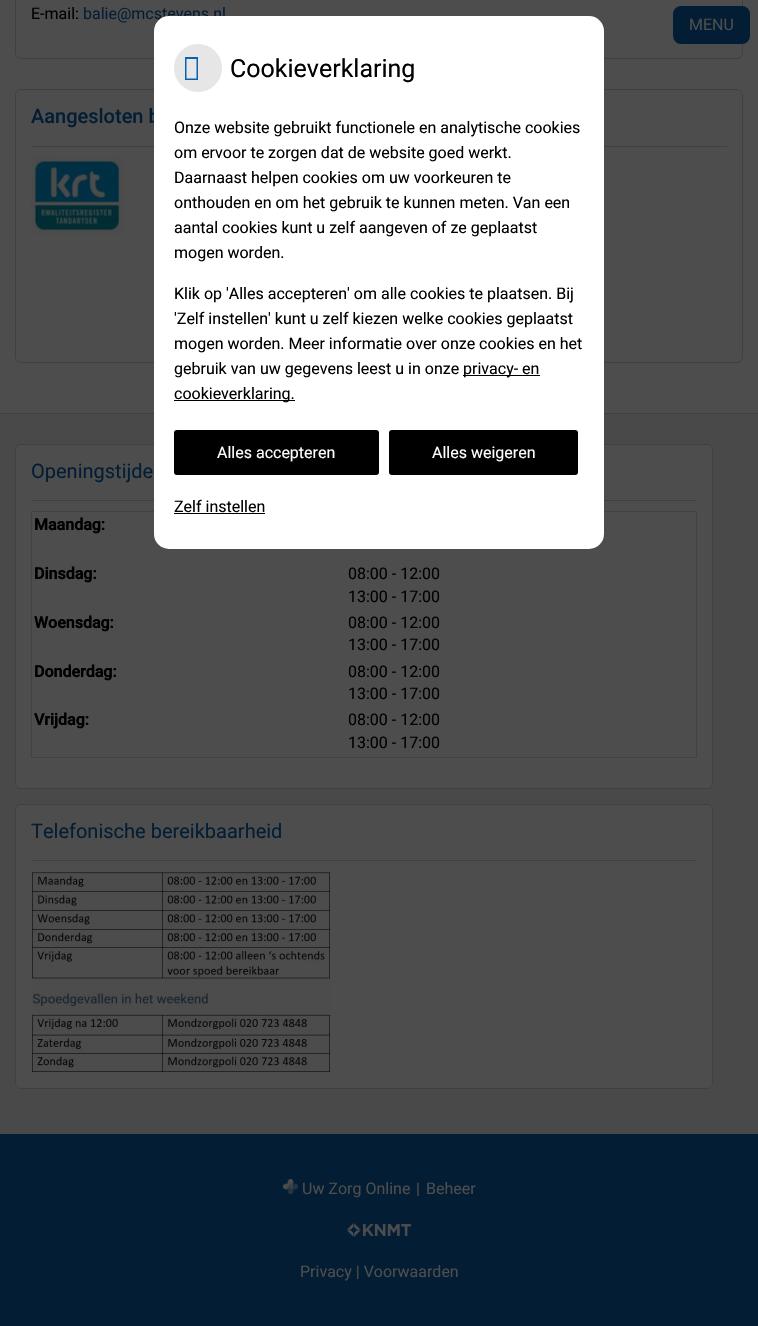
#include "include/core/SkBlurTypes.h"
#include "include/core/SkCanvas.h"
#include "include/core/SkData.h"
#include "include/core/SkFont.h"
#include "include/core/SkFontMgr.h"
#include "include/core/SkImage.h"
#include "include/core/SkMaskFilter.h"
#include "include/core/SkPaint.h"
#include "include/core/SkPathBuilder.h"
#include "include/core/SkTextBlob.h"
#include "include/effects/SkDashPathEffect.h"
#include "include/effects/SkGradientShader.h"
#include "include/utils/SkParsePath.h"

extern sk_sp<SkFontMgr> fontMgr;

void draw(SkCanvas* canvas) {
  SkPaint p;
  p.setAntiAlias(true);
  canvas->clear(SkColorSetRGB(77, 77, 77));
  p.setStyle(SkPaint::kStroke_Style);
  p.setStrokeWidth(1);
  p.setColor(SkColorSetRGB(64, 64, 64));
  canvas->drawRoundRect(SkRect::MakeLTRB(15.5f, -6.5f, 742.5f, 58.5f), 5.5f, 5.5f, p);
  canvas->drawRoundRect(SkRect::MakeLTRB(15.5f, 89.5f, 742.5f, 362.5f), 5.5f, 5.5f, p);
  p.setStyle(SkPaint::kFill_Style);
  canvas->drawRect(SkRect::MakeLTRB(31, 146, 727, 147), p);
  canvas->drawImageRect(SkImages::DeferredFromEncodedData(SkData::MakeFromFileName("images/1.png")), SkRect::MakeLTRB(31, 157, 124, 234), SkSamplingOptions());
  p.setColor(SkColorSetRGB(3, 29, 52));
  canvas->drawRoundRect(SkRect::MakeLTRB(673, 6, 750, 44), 8, 8, p);
  p.setColor(SkColorSetRGB(73, 73, 73));
  canvas->drawRect(SkRect::MakeLTRB(0, 414, 758, 1134), p);
  p.setColor(SkColorSetRGB(64, 64, 64));
  canvas->drawRect(SkRect::MakeLTRB(0, 413, 758, 414), p);
  p.setColor(SkColorSetRGB(77, 77, 77));
  canvas->drawRoundRect(SkRect::MakeLTRB(15.5f, 444.5f, 712.5f, 788.5f), 5.5f, 5.5f, p);
  p.setStyle(SkPaint::kStroke_Style);
  p.setColor(SkColorSetRGB(64, 64, 64));
  canvas->drawRoundRect(SkRect::MakeLTRB(15.5f, 444.5f, 712.5f, 788.5f), 5.5f, 5.5f, p);
  p.setStyle(SkPaint::kFill_Style);
  canvas->drawRect(SkRect::MakeLTRB(31, 500, 697, 501), p);
  p.setStyle(SkPaint::kStroke_Style);
  p.setColor(SkColorSetRGB(66, 66, 66));
  canvas->drawRect(SkRect::MakeLTRB(31.5f, 511.5f, 696.5f, 757.5f), p);
  p.setStyle(SkPaint::kFill_Style);
  p.setColor(SkColorSetRGB(77, 77, 77));
  canvas->drawRoundRect(SkRect::MakeLTRB(15.5f, 804.5f, 712.5f, 1088.5f), 5.5f, 5.5f, p);
  p.setStyle(SkPaint::kStroke_Style);
  p.setColor(SkColorSetRGB(64, 64, 64));
  canvas->drawRoundRect(SkRect::MakeLTRB(15.5f, 804.5f, 712.5f, 1088.5f), 5.5f, 5.5f, p);
  p.setStyle(SkPaint::kFill_Style);
  canvas->drawRect(SkRect::MakeLTRB(31, 860, 697, 861), p);
  canvas->drawImageRect(SkImages::DeferredFromEncodedData(SkData::MakeFromFileName("images/2.png")), SkRect::MakeLTRB(31, 871, 331, 1073), SkSamplingOptions());
  p.setColor(SkColorSetRGB(3, 29, 52));
  canvas->drawRect(SkRect::MakeLTRB(0, 1134, 758, 1326), p);
  canvas->drawImageRect(SkImages::DeferredFromEncodedData(SkData::MakeFromFileName("images/3.png")), SkRect::MakeLTRB(283, 1179, 298, 1194), SkSamplingOptions());
  canvas->drawImageRect(SkImages::DeferredFromEncodedData(SkData::MakeFromFileName("images/4.png")), SkRect::MakeLTRB(347, 1223, 411, 1237), SkSamplingOptions());
  SkFont font1(fontMgr->matchFamilyStyle("Roboto", SkFontStyle::Normal()), 16);
  font1.setSubpixel(true);
  p.setColor(SK_ColorBLACK);
  canvas->drawString("E-mail:", 31, 19, font1, p);
  p.setColor(SkColorSetRGB(3, 29, 52));
  canvas->drawString("balie@mcstevens.nl", 83, 19, font1, p);
  SkFont font2(fontMgr->matchFamilyStyle("Roboto", SkFontStyle(500, SkFontStyle::kNormal_Width, SkFontStyle::kUpright_Slant)), 20);
  font2.setSubpixel(true);
  canvas->drawString("Aangesloten b", 31, 123, font2, p);
  p.setColor(SkColorSetRGB(77, 77, 77));
  canvas->drawString("MENU", 689, 30, font1, p);
  p.setColor(SK_ColorWHITE);
  canvas->drawRoundRect(SkRect::MakeLTRB(154, 16, 604, 549), 15, 15, p);
  p.setColor(SkColorSetRGB(230, 230, 230));
  canvas->drawCircle(198, 68, 24, p);
  p.setColor(SkColorSetRGB(10, 97, 173));
  canvas->drawPath(SkPathBuilder().moveTo(185, 80).lineTo(185, 57).lineTo(198, 57).lineTo(198, 80).close().moveTo(186.5f, 78.5f).lineTo(196.5f, 78.5f).lineTo(196.5f, 59).lineTo(186.5f, 59).close().detach(), p);
  SkFont font3(fontMgr->matchFamilyStyle("Roboto", SkFontStyle::Normal()), 25);
  font3.setSubpixel(true);
  p.setColor(SK_ColorBLACK);
  canvas->drawString("Cookieverklaring", 230, 77, font3, p);
  canvas->drawString("Onze website gebruikt functionele en analytische cookies", 174, 133, font1, p);
  canvas->drawString("om ervoor te zorgen dat de website goed werkt.", 174, 158, font1, p);
  canvas->drawString("Daarnaast helpen cookies om uw voorkeuren te", 174, 183, font1, p);
  canvas->drawString("onthouden en om het gebruik te kunnen meten. Van een", 174, 208, font1, p);
  canvas->drawString("aantal cookies kunt u zelf aangeven of ze geplaatst", 174, 233, font1, p);
  canvas->drawString("mogen worden.", 174, 258, font1, p);
  canvas->drawString("Klik op 'Alles accepteren' om alle cookies te plaatsen. Bij", 174, 299, font1, p);
  canvas->drawString("'Zelf instellen' kunt u zelf kiezen welke cookies geplaatst", 174, 324, font1, p);
  canvas->drawString("mogen worden. Meer informatie over onze cookies en het", 174, 349, font1, p);
  canvas->drawString("gebruik van uw gegevens leest u in onze", 174, 374, font1, p);
  canvas->drawRect(SkRect::MakeLTRB(463, 375, 540, 376), p);
  canvas->drawString("privacy- en", 463, 374, font1, p);
  canvas->drawRect(SkRect::MakeLTRB(174, 400, 295, 401), p);
  canvas->drawString("cookieverklaring.", 174, 399, font1, p);
  canvas->drawRoundRect(SkRect::MakeLTRB(174, 430, 379, 475), 3, 3, p);
  p.setColor(SK_ColorWHITE);
  canvas->drawString("Alles accepteren", 217, 458, font1, p);
  p.setColor(SK_ColorBLACK);
  canvas->drawRoundRect(SkRect::MakeLTRB(389, 430, 578, 475), 3, 3, p);
  p.setColor(SK_ColorWHITE);
  canvas->drawString("Alles weigeren", 432, 458, font1, p);
  p.setColor(SK_ColorBLACK);
  canvas->drawString("Zelf instellen", 174, 512, font1, p);
  canvas->drawRect(SkRect::MakeLTRB(174, 513, 265, 514), p);
  SkFont font4(fontMgr->matchFamilyStyle("Roboto", SkFontStyle::Normal()), 20);
  font4.setSubpixel(true);
  p.setColor(SkColorSetRGB(3, 29, 52));
  canvas->drawString("Openingstijde", 31, 478, font4, p);
  SkFont font5(fontMgr->matchFamilyStyle("Roboto", SkFontStyle::Bold()), 16);
  font5.setSubpixel(true);
  p.setColor(SK_ColorBLACK);
  canvas->drawString("Maandag:", 34, 530, font5, p);
  canvas->drawString("Dinsdag:", 34, 579, font5, p);
  canvas->drawString("08:00 - 12:00", 348, 579, font1, p);
  canvas->drawString("13:00 - 17:00", 348, 602, font1, p);
  canvas->drawString("Woensdag:", 34, 628, font5, p);
  canvas->drawString("08:00 - 12:00", 348, 628, font1, p);
  canvas->drawString("13:00 - 17:00", 348, 650, font1, p);
  canvas->drawString("Donderdag:", 34, 677, font5, p);
  canvas->drawString("08:00 - 12:00", 348, 677, font1, p);
  canvas->drawString("13:00 - 17:00", 348, 699, font1, p);
  canvas->drawString("Vrijdag:", 34, 725, font5, p);
  canvas->drawString("08:00 - 12:00", 348, 725, font1, p);
  canvas->drawString("13:00 - 17:00", 348, 748, font1, p);
  p.setColor(SkColorSetRGB(3, 29, 52));
  canvas->drawString("Telefonische bereikbaarheid", 31, 838, font4, p);
  p.setColor(SkColorSetRGB(77, 77, 77));
  canvas->drawString("Uw Zorg Online", 302, 1194, font1, p);
  canvas->drawString("|", 416, 1194, font1, p);
  canvas->drawString("Beheer", 426, 1194, font1, p);
  canvas->drawString("Privacy | Voorwaarden", 300, 1277, font1, p);
}
